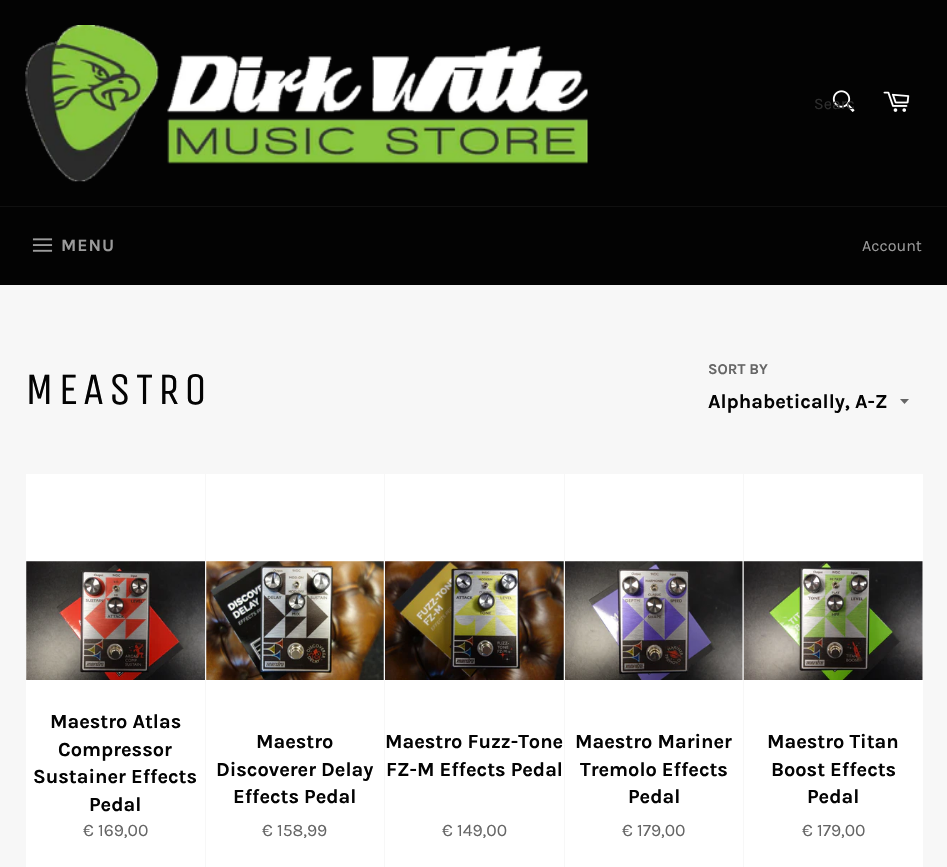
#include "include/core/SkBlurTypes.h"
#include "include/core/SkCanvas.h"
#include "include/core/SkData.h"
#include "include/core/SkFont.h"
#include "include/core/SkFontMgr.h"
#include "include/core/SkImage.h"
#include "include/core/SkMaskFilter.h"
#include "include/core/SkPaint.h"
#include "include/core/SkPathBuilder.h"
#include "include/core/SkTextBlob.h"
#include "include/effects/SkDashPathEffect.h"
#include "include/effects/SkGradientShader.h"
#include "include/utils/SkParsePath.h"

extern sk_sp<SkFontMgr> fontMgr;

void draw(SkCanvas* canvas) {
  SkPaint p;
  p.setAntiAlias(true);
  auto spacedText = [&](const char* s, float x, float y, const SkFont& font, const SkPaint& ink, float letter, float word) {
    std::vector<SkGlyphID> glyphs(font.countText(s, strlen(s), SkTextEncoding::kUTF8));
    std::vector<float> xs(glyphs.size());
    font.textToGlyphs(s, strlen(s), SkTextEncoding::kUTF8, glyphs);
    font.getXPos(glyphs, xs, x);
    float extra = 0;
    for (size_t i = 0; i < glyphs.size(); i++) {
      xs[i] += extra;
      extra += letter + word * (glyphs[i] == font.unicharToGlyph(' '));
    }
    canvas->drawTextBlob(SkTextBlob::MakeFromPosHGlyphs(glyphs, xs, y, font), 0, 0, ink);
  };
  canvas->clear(SkColorSetRGB(247, 247, 247));
  p.setColor(SkColorSetRGB(3, 3, 3));
  canvas->drawRect(SkRect::MakeLTRB(0, 0, 947, 206), p);
  canvas->drawImageRect(SkImages::DeferredFromEncodedData(SkData::MakeFromFileName("images/1.png")), SkRect::MakeLTRB(25, 25, 588, 182), SkSamplingOptions());
  canvas->drawImageRect(SkImages::DeferredFromEncodedData(SkData::MakeFromFileName("images/2.png")), SkRect::MakeLTRB(832, 90, 855, 112), SkSamplingOptions());
  canvas->drawImageRect(SkImages::DeferredFromEncodedData(SkData::MakeFromFileName("images/3.png")), SkRect::MakeLTRB(883, 91, 910, 112), SkSamplingOptions());
  canvas->drawRect(SkRect::MakeLTRB(0, 207, 947, 285), p);
  p.setColor(SkColorSetRGB(16, 16, 16));
  canvas->drawRect(SkRect::MakeLTRB(0, 206, 947, 207), p);
  canvas->drawImageRect(SkImages::DeferredFromEncodedData(SkData::MakeFromFileName("images/4.png")), SkRect::MakeLTRB(32, 238, 53, 252), SkSamplingOptions());
  p.setColor(SkColorSetRGB(102, 102, 102));
  canvas->drawPath(SkPathBuilder().moveTo(900, 399).lineTo(904.5f, 404).lineTo(909, 399).close().detach(), p);
  p.setColor(SK_ColorWHITE);
  canvas->drawRect(SkRect::MakeLTRB(26, 474, 205, 867), p);
  canvas->drawImageRect(SkImages::DeferredFromEncodedData(SkData::MakeFromFileName("images/5.png")), SkRect::MakeLTRB(26, 561, 205, 680), SkSamplingOptions());
  canvas->drawRect(SkRect::MakeLTRB(206, 474, 384, 867), p);
  canvas->drawImageRect(SkImages::DeferredFromEncodedData(SkData::MakeFromFileName("images/6.png")), SkRect::MakeLTRB(206, 561, 384, 680), SkSamplingOptions());
  canvas->drawRect(SkRect::MakeLTRB(385, 474, 564, 867), p);
  canvas->drawImageRect(SkImages::DeferredFromEncodedData(SkData::MakeFromFileName("images/7.png")), SkRect::MakeLTRB(385, 561, 564, 680), SkSamplingOptions());
  canvas->drawRect(SkRect::MakeLTRB(565, 474, 743, 867), p);
  canvas->drawImageRect(SkImages::DeferredFromEncodedData(SkData::MakeFromFileName("images/8.png")), SkRect::MakeLTRB(565, 561, 743, 680), SkSamplingOptions());
  canvas->drawRect(SkRect::MakeLTRB(744, 474, 923, 867), p);
  canvas->drawImageRect(SkImages::DeferredFromEncodedData(SkData::MakeFromFileName("images/9.png")), SkRect::MakeLTRB(743, 561, 923, 680), SkSamplingOptions());
  SkFont font1(fontMgr->matchFamilyStyle("Karla", SkFontStyle::Normal()), 16);
  font1.setSubpixel(true);
  p.setColor(SkColorSetRGB(46, 46, 46));
  canvas->drawString("Searc", 814, 109, font1, p);
  SkFont font2(fontMgr->matchFamilyStyle("Karla", SkFontStyle::Bold()), 17.5f);
  font2.setSubpixel(true);
  p.setColor(SkColorSetRGB(154, 154, 154));
  spacedText("MENU", 61, 251, font2, p, 1, 0);
  canvas->drawString("Account", 862, 251, font1, p);
  SkFont font3(fontMgr->matchFamilyStyle("Unica One", SkFontStyle::Normal()), 45);
  font3.setSubpixel(true);
  p.setColor(SkColorSetRGB(3, 3, 3));
  spacedText("MEASTRO", 25, 404, font3, p, 4.5f, 0);
  SkFont font4(fontMgr->matchFamilyStyle("Karla", SkFontStyle::Bold()), 15);
  font4.setSubpixel(true);
  p.setColor(SkColorSetRGB(102, 102, 102));
  canvas->drawString("SORT BY", 708, 374, font4, p);
  SkFont font5(fontMgr->matchFamilyStyle("Karla", SkFontStyle::Bold()), 20);
  font5.setSubpixel(true);
  p.setColor(SkColorSetRGB(3, 3, 3));
  canvas->drawString("Alphabetically, A-Z", 708, 408, font5, p);
  canvas->drawString("Maestro Atlas", 50, 728, font5, p);
  canvas->drawString("Compressor", 58, 756, font5, p);
  canvas->drawString("Sustainer Effects", 33, 783, font5, p);
  canvas->drawString("Pedal", 89, 811, font5, p);
  SkFont font6(fontMgr->matchFamilyStyle("Karla", SkFontStyle::Normal()), 17.5f);
  font6.setSubpixel(true);
  p.setColor(SkColorSetRGB(102, 102, 102));
  canvas->drawString("€ 169,00", 83, 836, font6, p);
  p.setColor(SkColorSetRGB(3, 3, 3));
  canvas->drawString("Maestro", 256, 748, font5, p);
  canvas->drawString("Discoverer Delay", 216, 776, font5, p);
  canvas->drawString("Effects Pedal", 233, 803, font5, p);
  p.setColor(SkColorSetRGB(102, 102, 102));
  canvas->drawString("€ 158,99", 262, 836, font6, p);
  p.setColor(SkColorSetRGB(3, 3, 3));
  canvas->drawString("Maestro Fuzz-Tone", 385, 748, font5, p);
  canvas->drawString("FZ-M Effects Pedal", 386, 776, font5, p);
  p.setColor(SkColorSetRGB(102, 102, 102));
  canvas->drawString("€ 149,00", 442, 836, font6, p);
  p.setColor(SkColorSetRGB(3, 3, 3));
  canvas->drawString("Maestro Mariner", 575, 748, font5, p);
  canvas->drawString("Tremolo Effects", 580, 776, font5, p);
  canvas->drawString("Pedal", 628, 803, font5, p);
  p.setColor(SkColorSetRGB(102, 102, 102));
  canvas->drawString("€ 179,00", 622, 836, font6, p);
  p.setColor(SkColorSetRGB(3, 3, 3));
  canvas->drawString("Maestro Titan", 767, 748, font5, p);
  canvas->drawString("Boost Effects", 771, 776, font5, p);
  canvas->drawString("Pedal", 807, 803, font5, p);
  p.setColor(SkColorSetRGB(102, 102, 102));
  canvas->drawString("€ 179,00", 802, 836, font6, p);
}
